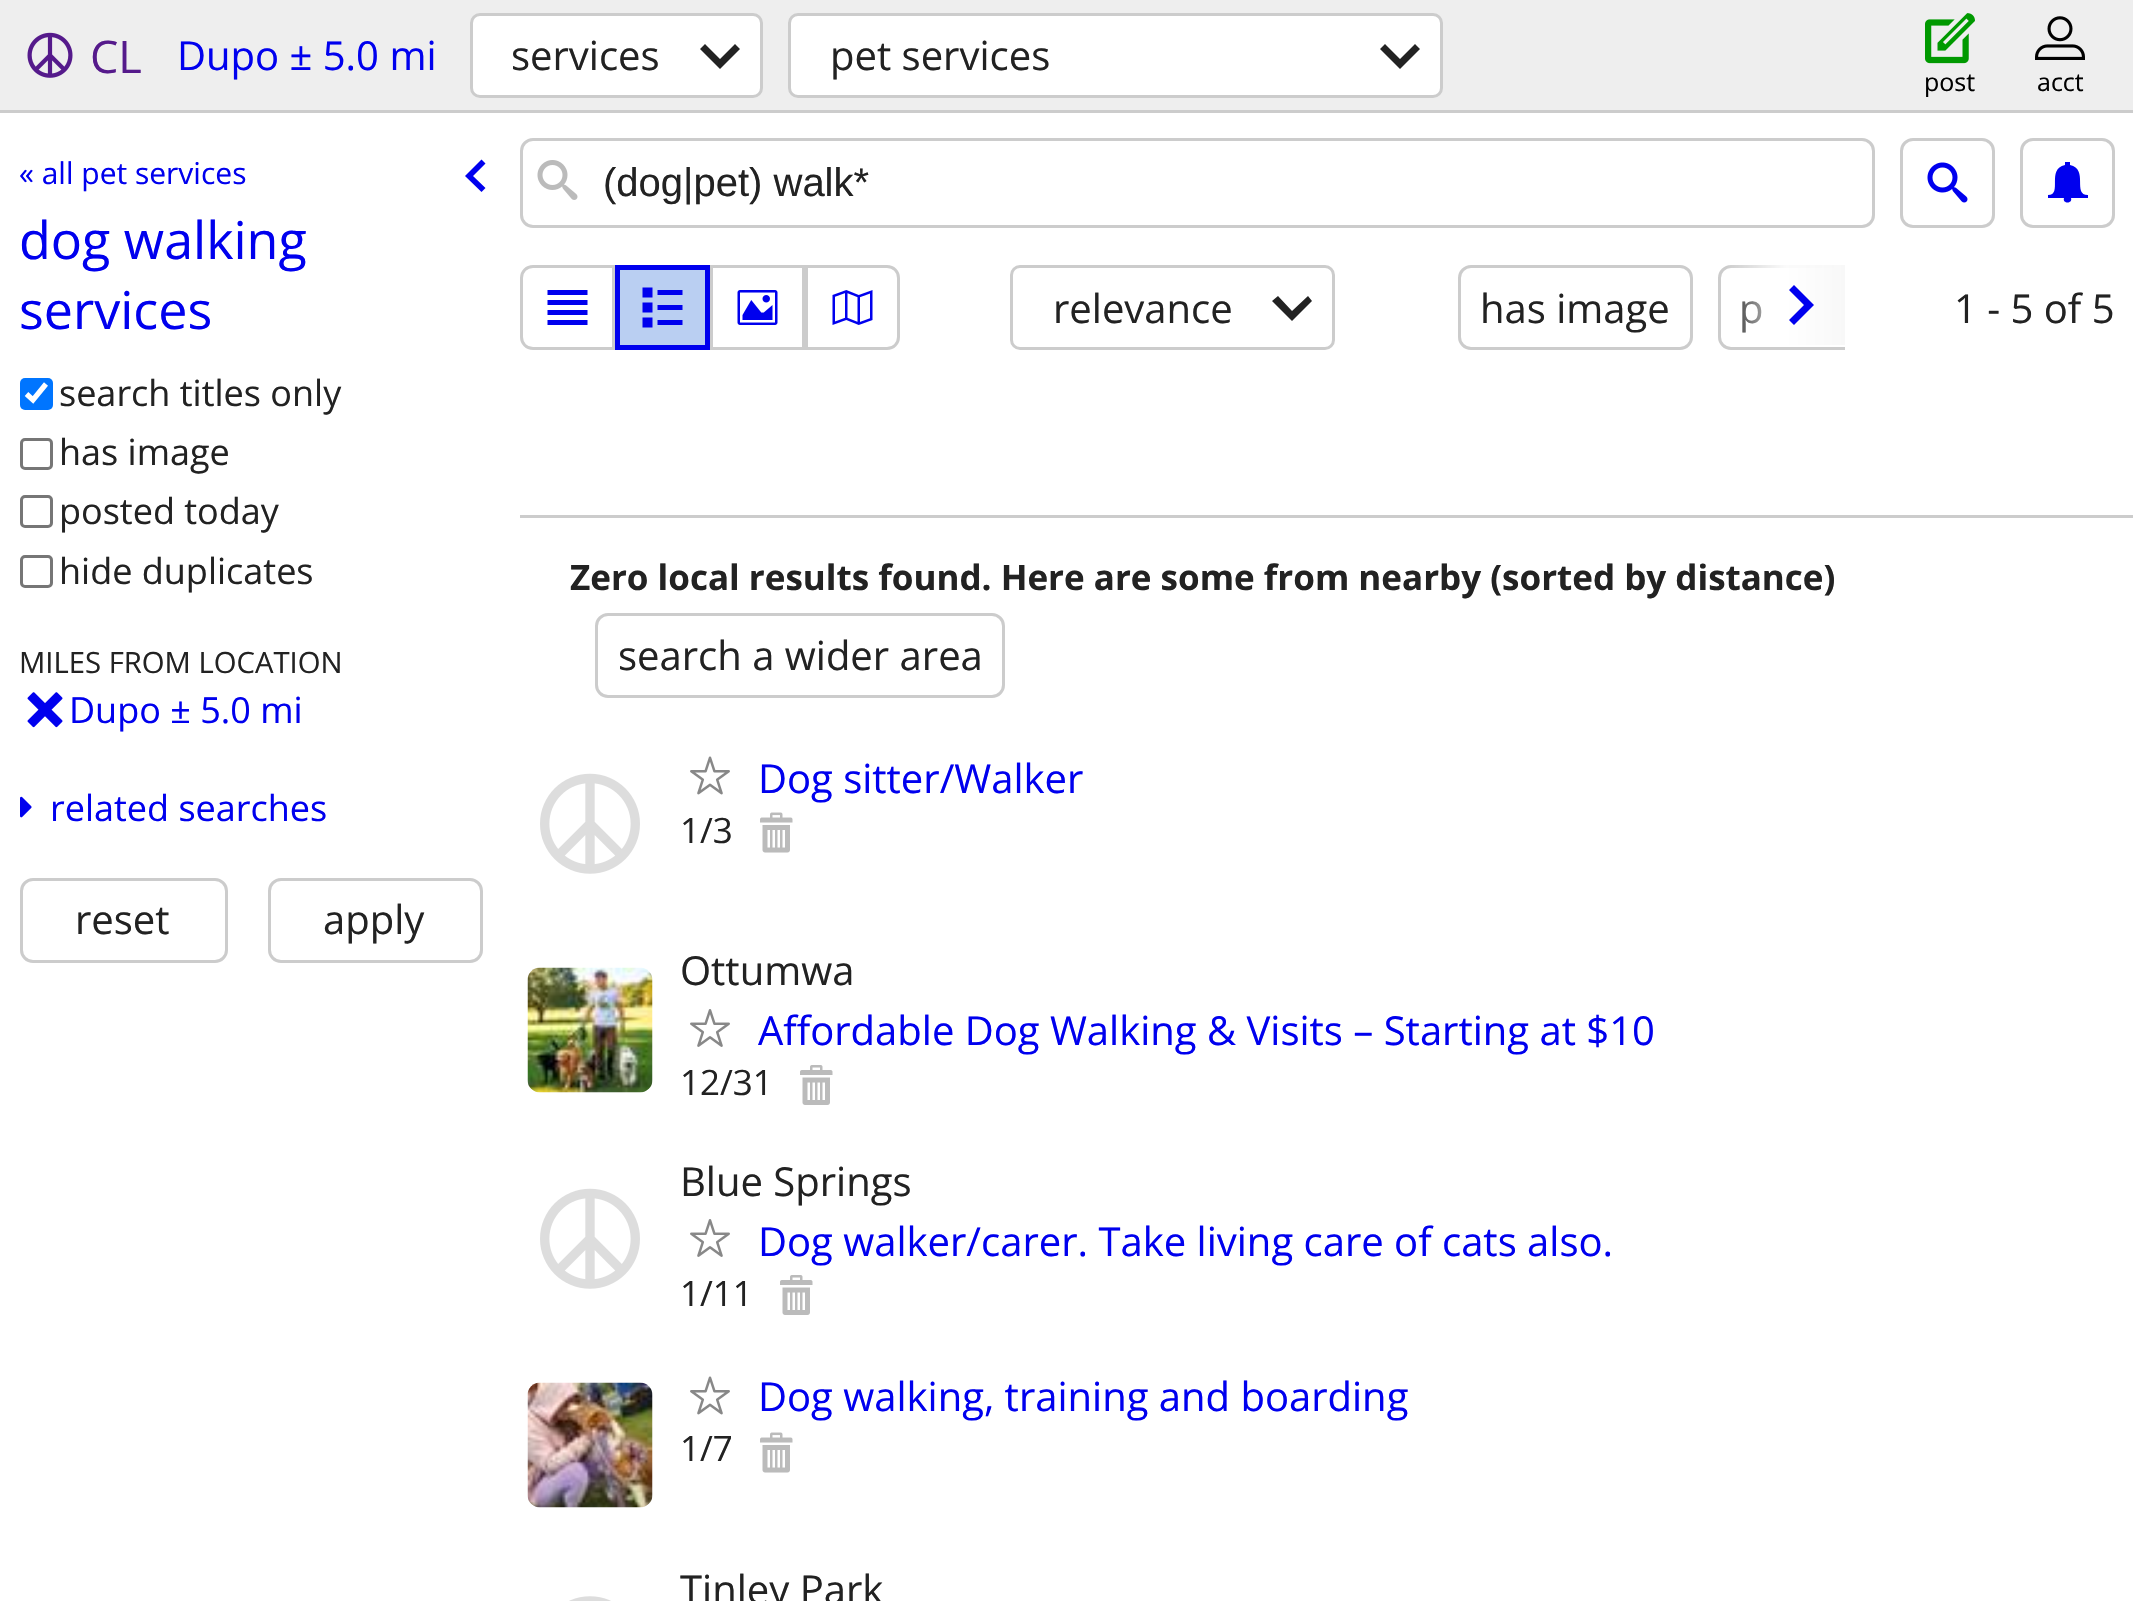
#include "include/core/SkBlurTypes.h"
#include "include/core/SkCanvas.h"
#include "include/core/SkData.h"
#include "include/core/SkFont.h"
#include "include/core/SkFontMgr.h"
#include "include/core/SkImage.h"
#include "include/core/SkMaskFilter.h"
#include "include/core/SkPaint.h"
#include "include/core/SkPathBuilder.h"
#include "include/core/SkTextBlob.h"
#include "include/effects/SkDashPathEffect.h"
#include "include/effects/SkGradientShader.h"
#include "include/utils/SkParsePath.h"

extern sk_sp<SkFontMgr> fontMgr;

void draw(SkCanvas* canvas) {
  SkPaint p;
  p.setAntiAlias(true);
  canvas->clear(SK_ColorWHITE);
  p.setColor(SkColorSetRGB(238, 238, 238));
  canvas->drawRect(SkRect::MakeLTRB(0, 0, 2133, 110), p);
  p.setColor(SkColorSetRGB(204, 204, 204));
  canvas->drawRect(SkRect::MakeLTRB(0, 110, 2133, 113), p);
  canvas->drawImageRect(SkImages::DeferredFromEncodedData(SkData::MakeFromFileName("images/1.png")), SkRect::MakeLTRB(27, 32, 73, 78), SkSamplingOptions());
  p.setColor(SK_ColorWHITE);
  canvas->drawRoundRect(SkRect::MakeLTRB(471.5f, 14.5f, 761.5f, 96.5f), 8.5f, 8.5f, p);
  p.setStyle(SkPaint::kStroke_Style);
  p.setStrokeWidth(3);
  p.setColor(SkColorSetRGB(204, 204, 204));
  canvas->drawRoundRect(SkRect::MakeLTRB(471.5f, 14.5f, 761.5f, 96.5f), 8.5f, 8.5f, p);
  p.setStyle(SkPaint::kFill_Style);
  p.setColor(SkColorSetRGB(34, 34, 34));
  canvas->drawPath(SkPathBuilder().moveTo(740, 49).lineTo(735, 44).lineTo(720, 59).lineTo(705, 44).lineTo(700, 49).lineTo(720, 69).close().detach(), p);
  p.setColor(SK_ColorWHITE);
  canvas->drawRoundRect(SkRect::MakeLTRB(789.5f, 14.5f, 1441.5f, 96.5f), 8.5f, 8.5f, p);
  p.setStyle(SkPaint::kStroke_Style);
  p.setColor(SkColorSetRGB(204, 204, 204));
  canvas->drawRoundRect(SkRect::MakeLTRB(789.5f, 14.5f, 1441.5f, 96.5f), 8.5f, 8.5f, p);
  p.setStyle(SkPaint::kFill_Style);
  p.setColor(SkColorSetRGB(34, 34, 34));
  canvas->drawPath(SkPathBuilder().moveTo(1420, 49).lineTo(1415, 44).lineTo(1400, 59).lineTo(1385, 44).lineTo(1380, 49).lineTo(1400, 69).close().detach(), p);
  canvas->drawImageRect(SkImages::DeferredFromEncodedData(SkData::MakeFromFileName("images/2.png")), SkRect::MakeLTRB(1925, 13, 1975, 64), SkSamplingOptions());
  canvas->drawImageRect(SkImages::DeferredFromEncodedData(SkData::MakeFromFileName("images/3.png")), SkRect::MakeLTRB(2035, 16, 2085, 60), SkSamplingOptions());
  p.setColor(SkColorSetRGB(0, 0, 238));
  canvas->drawPath(SkPathBuilder().moveTo(481.5f, 192).lineTo(485.5f, 188).lineTo(473, 176).lineTo(485.5f, 163.5f).lineTo(481.5f, 159.5f).lineTo(465, 176).close().detach(), p);
  p.setColor(SkColorSetRGB(0, 117, 255));
  canvas->drawRoundRect(SkRect::MakeLTRB(20, 378, 53, 410), 5, 5, p);
  p.setStyle(SkPaint::kStroke_Style);
  p.setStrokeWidth(5.2f);
  p.setColor(SK_ColorWHITE);
  canvas->drawPath(SkPathBuilder().moveTo(26.5f, 394).lineTo(33, 400).lineTo(46, 384).detach(), p);
  p.setStrokeWidth(3);
  p.setColor(SkColorSetRGB(118, 118, 118));
  canvas->drawRoundRect(SkRect::MakeLTRB(21.5f, 439.5f, 51.5f, 468.5f), 3.5f, 3.5f, p);
  canvas->drawRoundRect(SkRect::MakeLTRB(21.5f, 496.5f, 51.5f, 526.5f), 3.5f, 3.5f, p);
  canvas->drawRoundRect(SkRect::MakeLTRB(21.5f, 556.5f, 51.5f, 586.5f), 3.5f, 3.5f, p);
  canvas->drawImageRect(SkImages::DeferredFromEncodedData(SkData::MakeFromFileName("images/4.png")), SkRect::MakeLTRB(27, 692, 63, 728), SkSamplingOptions());
  canvas->drawImageRect(SkImages::DeferredFromEncodedData(SkData::MakeFromFileName("images/5.png")), SkRect::MakeLTRB(20, 796, 32, 818), SkSamplingOptions());
  p.setColor(SkColorSetRGB(204, 204, 204));
  canvas->drawRoundRect(SkRect::MakeLTRB(21.5f, 879.5f, 226.5f, 961.5f), 11.5f, 11.5f, p);
  canvas->drawRoundRect(SkRect::MakeLTRB(269.5f, 879.5f, 481.5f, 961.5f), 11.5f, 11.5f, p);
  canvas->drawRoundRect(SkRect::MakeLTRB(521.5f, 139.5f, 1873.5f, 226.5f), 11.5f, 11.5f, p);
  canvas->drawImageRect(SkImages::DeferredFromEncodedData(SkData::MakeFromFileName("images/6.png")), SkRect::MakeLTRB(537, 160, 578, 200), SkSamplingOptions());
  canvas->drawRoundRect(SkRect::MakeLTRB(1901.5f, 139.5f, 1993.5f, 226.5f), 11.5f, 11.5f, p);
  canvas->drawImageRect(SkImages::DeferredFromEncodedData(SkData::MakeFromFileName("images/7.png")), SkRect::MakeLTRB(1927, 162, 1968, 203), SkSamplingOptions());
  canvas->drawRoundRect(SkRect::MakeLTRB(2021.5f, 139.5f, 2113.5f, 226.5f), 11.5f, 11.5f, p);
  p.setStyle(SkPaint::kFill_Style);
  p.setColor(SkColorSetRGB(0, 0, 238));
  canvas->drawPath(SkPathBuilder().moveTo(2088, 195).cubicTo(2072, 195, 2089, 169, 2070, 165).lineTo(2070, 162).lineTo(2065, 162).lineTo(2065, 165).cubicTo(2046, 169, 2063, 195, 2048, 195).lineTo(2048, 198).lineTo(2064, 198).cubicTo(2062, 204, 2073, 204, 2071, 198).lineTo(2088, 198).close().detach(), p);
  p.setStyle(SkPaint::kStroke_Style);
  p.setColor(SkColorSetRGB(204, 204, 204));
  canvas->drawPath(SkPathBuilder().moveTo(533, 266.5f).lineTo(613.5f, 266.5f).lineTo(613.5f, 348.5f).lineTo(533, 348.5f).cubicTo(526.5f, 348.5f, 521.5f, 343.5f, 521.5f, 337).lineTo(521.5f, 278).cubicTo(521.5f, 271.5f, 526.5f, 266.5f, 533, 266.5f).close().detach(), p);
  canvas->drawImageRect(SkImages::DeferredFromEncodedData(SkData::MakeFromFileName("images/8.png")), SkRect::MakeLTRB(547, 290, 588, 325), SkSamplingOptions());
  p.setStyle(SkPaint::kFill_Style);
  p.setColor(SkColorSetRGB(186, 207, 242));
  canvas->drawRect(SkRect::MakeLTRB(617.5f, 267.5f, 707.5f, 347.5f), p);
  p.setStyle(SkPaint::kStroke_Style);
  p.setStrokeWidth(5);
  p.setColor(SkColorSetRGB(0, 0, 238));
  canvas->drawRect(SkRect::MakeLTRB(617.5f, 267.5f, 707.5f, 347.5f), p);
  canvas->drawImageRect(SkImages::DeferredFromEncodedData(SkData::MakeFromFileName("images/9.png")), SkRect::MakeLTRB(642, 287, 683, 328), SkSamplingOptions());
  p.setStrokeWidth(3);
  p.setColor(SkColorSetRGB(204, 204, 204));
  canvas->drawRect(SkRect::MakeLTRB(711.5f, 266.5f, 803.5f, 348.5f), p);
  canvas->drawImageRect(SkImages::DeferredFromEncodedData(SkData::MakeFromFileName("images/10.png")), SkRect::MakeLTRB(737, 290, 778, 325), SkSamplingOptions());
  canvas->drawPath(SkPathBuilder().moveTo(806.5f, 266.5f).lineTo(887, 266.5f).cubicTo(893.5f, 266.5f, 898.5f, 271.5f, 898.5f, 278).lineTo(898.5f, 337).cubicTo(898.5f, 343.5f, 893.5f, 348.5f, 887, 348.5f).lineTo(806.5f, 348.5f).close().detach(), p);
  canvas->drawImageRect(SkImages::DeferredFromEncodedData(SkData::MakeFromFileName("images/11.png")), SkRect::MakeLTRB(832, 290, 873, 325), SkSamplingOptions());
  canvas->drawRoundRect(SkRect::MakeLTRB(1011.5f, 266.5f, 1333.5f, 348.5f), 8.5f, 8.5f, p);
  p.setStyle(SkPaint::kFill_Style);
  p.setColor(SkColorSetRGB(34, 34, 34));
  canvas->drawPath(SkPathBuilder().moveTo(1312, 301).lineTo(1308, 296).lineTo(1292, 311).lineTo(1278, 296).lineTo(1272, 301).lineTo(1292, 321).close().detach(), p);
  p.setStyle(SkPaint::kStroke_Style);
  p.setColor(SkColorSetRGB(204, 204, 204));
  canvas->drawRoundRect(SkRect::MakeLTRB(1459.5f, 266.5f, 1691.5f, 348.5f), 11.5f, 11.5f, p);
  p.setStyle(SkPaint::kFill_Style);
  canvas->drawRect(SkRect::MakeLTRB(520, 515, 2133, 518), p);
  p.setStyle(SkPaint::kStroke_Style);
  canvas->drawRoundRect(SkRect::MakeLTRB(596.5f, 614.5f, 1003.5f, 696.5f), 11.5f, 11.5f, p);
  canvas->drawImageRect(SkImages::DeferredFromEncodedData(SkData::MakeFromFileName("images/12.png")), SkRect::MakeLTRB(540, 773, 640, 874), SkSamplingOptions());
  canvas->drawImageRect(SkImages::DeferredFromEncodedData(SkData::MakeFromFileName("images/13.png")), SkRect::MakeLTRB(690, 756, 730, 795), SkSamplingOptions());
  canvas->drawImageRect(SkImages::DeferredFromEncodedData(SkData::MakeFromFileName("images/14.png")), SkRect::MakeLTRB(760, 812, 793, 853), SkSamplingOptions());
  canvas->drawImageRect(SkImages::DeferredFromEncodedData(SkData::MakeFromFileName("images/15.png")), SkRect::MakeLTRB(527, 967, 653, 1093), SkSamplingOptions());
  canvas->drawImageRect(SkImages::DeferredFromEncodedData(SkData::MakeFromFileName("images/16.png")), SkRect::MakeLTRB(690, 1009, 730, 1047), SkSamplingOptions());
  canvas->drawImageRect(SkImages::DeferredFromEncodedData(SkData::MakeFromFileName("images/17.png")), SkRect::MakeLTRB(800, 1065, 833, 1105), SkSamplingOptions());
  canvas->drawImageRect(SkImages::DeferredFromEncodedData(SkData::MakeFromFileName("images/12.png")), SkRect::MakeLTRB(540, 1188, 640, 1289), SkSamplingOptions());
  canvas->drawImageRect(SkImages::DeferredFromEncodedData(SkData::MakeFromFileName("images/16.png")), SkRect::MakeLTRB(690, 1219, 730, 1257), SkSamplingOptions());
  canvas->drawImageRect(SkImages::DeferredFromEncodedData(SkData::MakeFromFileName("images/17.png")), SkRect::MakeLTRB(780, 1275, 813, 1315), SkSamplingOptions());
  canvas->drawImageRect(SkImages::DeferredFromEncodedData(SkData::MakeFromFileName("images/18.png")), SkRect::MakeLTRB(527, 1382, 653, 1508), SkSamplingOptions());
  canvas->drawImageRect(SkImages::DeferredFromEncodedData(SkData::MakeFromFileName("images/13.png")), SkRect::MakeLTRB(690, 1376, 730, 1415), SkSamplingOptions());
  canvas->drawImageRect(SkImages::DeferredFromEncodedData(SkData::MakeFromFileName("images/14.png")), SkRect::MakeLTRB(760, 1432, 793, 1473), SkSamplingOptions());
  canvas->drawImageRect(SkImages::DeferredFromEncodedData(SkData::MakeFromFileName("images/19.png")), SkRect::MakeLTRB(569, 1596, 611, 1601), SkSamplingOptions());
  SkFont font1(fontMgr->matchFamilyStyle("Open Sans", SkFontStyle::Normal()), 45);
  font1.setSubpixel(true);
  p.setStyle(SkPaint::kFill_Style);
  p.setColor(SkColorSetRGB(85, 26, 139));
  canvas->drawString("CL", 90, 73, font1, p);
  SkFont font2(fontMgr->matchFamilyStyle("Open Sans", SkFontStyle::Normal()), 40);
  font2.setSubpixel(true);
  p.setColor(SkColorSetRGB(0, 0, 238));
  canvas->drawString("Dupo ± 5.0 mi", 177, 70, font2, p);
  p.setColor(SkColorSetRGB(34, 34, 34));
  canvas->drawString("services", 511, 70, font2, p);
  canvas->drawString("pet services", 830, 70, font2, p);
  SkFont font3(fontMgr->matchFamilyStyle("Open Sans", SkFontStyle::Normal()), 25);
  font3.setSubpixel(true);
  p.setColor(SK_ColorBLACK);
  canvas->drawString("post", 1924, 91, font3, p);
  canvas->drawString("acct", 2037, 91, font3, p);
  SkFont font4(fontMgr->matchFamilyStyle("Open Sans", SkFontStyle::Normal()), 30);
  font4.setSubpixel(true);
  p.setColor(SkColorSetRGB(0, 0, 238));
  canvas->drawString("« all pet services", 19, 184, font4, p);
  SkFont font5(fontMgr->matchFamilyStyle("Open Sans", SkFontStyle::Normal()), 52);
  font5.setSubpixel(true);
  canvas->drawString("dog walking", 19, 259, font5, p);
  canvas->drawString("services", 19, 329, font5, p);
  SkFont font6(fontMgr->matchFamilyStyle("Open Sans", SkFontStyle::Normal()), 36);
  font6.setSubpixel(true);
  p.setColor(SkColorSetRGB(34, 34, 34));
  canvas->drawString("search titles only", 59, 406, font6, p);
  canvas->drawString("has image", 59, 465, font6, p);
  canvas->drawString("posted today", 59, 524, font6, p);
  canvas->drawString("hide duplicates", 59, 584, font6, p);
  SkFont font7(fontMgr->matchFamilyStyle("Open Sans", SkFontStyle::Normal()), 29.25f);
  font7.setSubpixel(true);
  canvas->drawString("MILES FROM LOCATION", 19, 673, font7, p);
  p.setColor(SkColorSetRGB(0, 0, 238));
  canvas->drawString("Dupo ± 5.0 mi", 69, 723, font6, p);
  canvas->drawString("related searches", 50, 821, font6, p);
  p.setColor(SkColorSetRGB(34, 34, 34));
  canvas->drawString("reset", 75, 934, font2, p);
  canvas->drawString("apply", 323, 934, font2, p);
  SkFont font8(fontMgr->matchFamilyStyle("Liberation Sans", SkFontStyle::Normal()), 40);
  font8.setSubpixel(true);
  canvas->drawString("(dog|pet) walk*", 603, 196, font8, p);
  canvas->drawString("relevance", 1053, 323, font2, p);
  canvas->drawString("has image", 1480, 323, font2, p);
  canvas->drawString("1 - 5 of 5", 1954, 323, font2, p);
  canvas->save();
  canvas->clipRect(SkRect::MakeLTRB(1458, 265, 1845, 350));
  p.setStyle(SkPaint::kStroke_Style);
  p.setColor(SkColorSetRGB(204, 204, 204));
  canvas->drawRoundRect(SkRect::MakeLTRB(1719.5f, 266.5f, 2006.5f, 348.5f), 11.5f, 11.5f, p);
  canvas->restore();
  p.setStyle(SkPaint::kFill_Style);
  p.setColor(SkColorSetRGB(34, 34, 34));
  canvas->drawString("p", 1739, 323, font2, p);
  {
    const SkColor colors[] = {SkColorSetARGB(0, 255, 255, 255), SkColorSetARGB(230, 255, 255, 255), SkColorSetRGB(248, 248, 248)};
    const float stops[] = {0, 0.5f, 1};
    const SkPoint ends[] = {{1725, 305}, {1845, 305}};
    p.setShader(SkGradientShader::MakeLinear(ends, colors, stops, 3, SkTileMode::kClamp));
    p.setAlpha(255);
  }
  canvas->drawRect(SkRect::MakeLTRB(1728, 265, 1845, 345), p);
  p.setShader(nullptr);
  p.setColor(SkColorSetRGB(0, 0, 238));
  canvas->drawPath(SkPathBuilder().moveTo(1794, 285).lineTo(1789, 290).lineTo(1804, 305).lineTo(1789, 320).lineTo(1794, 325).lineTo(1814, 305).close().detach(), p);
  SkFont font9(fontMgr->matchFamilyStyle("Open Sans", SkFontStyle::Bold()), 35);
  font9.setSubpixel(true);
  p.setColor(SkColorSetRGB(34, 34, 34));
  canvas->drawString("Zero local results found. Here are some from nearby (sorted by distance)", 570, 590, font9, p);
  canvas->drawString("search a wider area", 618, 670, font2, p);
  p.setColor(SkColorSetRGB(0, 0, 238));
  canvas->drawString("Dog sitter/Walker", 758, 793, font2, p);
  SkFont font10(fontMgr->matchFamilyStyle("Open Sans", SkFontStyle::Normal()), 35);
  font10.setSubpixel(true);
  p.setColor(SkColorSetRGB(34, 34, 34));
  canvas->drawString("1/3", 680, 843, font10, p);
  canvas->drawString("Ottumwa", 680, 985, font2, p);
  p.setColor(SkColorSetRGB(0, 0, 238));
  canvas->drawString("Affordable Dog Walking & Visits – Starting at $10", 758, 1045, font2, p);
  p.setColor(SkColorSetRGB(34, 34, 34));
  canvas->drawString("12/31", 680, 1095, font10, p);
  canvas->drawString("Blue Springs", 680, 1196, font2, p);
  p.setColor(SkColorSetRGB(0, 0, 238));
  canvas->drawString("Dog walker/carer. Take living care of cats also.", 758, 1256, font2, p);
  p.setColor(SkColorSetRGB(34, 34, 34));
  canvas->drawString("1/11", 680, 1306, font10, p);
  p.setColor(SkColorSetRGB(0, 0, 238));
  canvas->drawString("Dog walking, training and boarding", 758, 1411, font2, p);
  p.setColor(SkColorSetRGB(34, 34, 34));
  canvas->drawString("1/7", 680, 1461, font10, p);
  canvas->drawString("Tinley Park", 680, 1604, font2, p);
}
